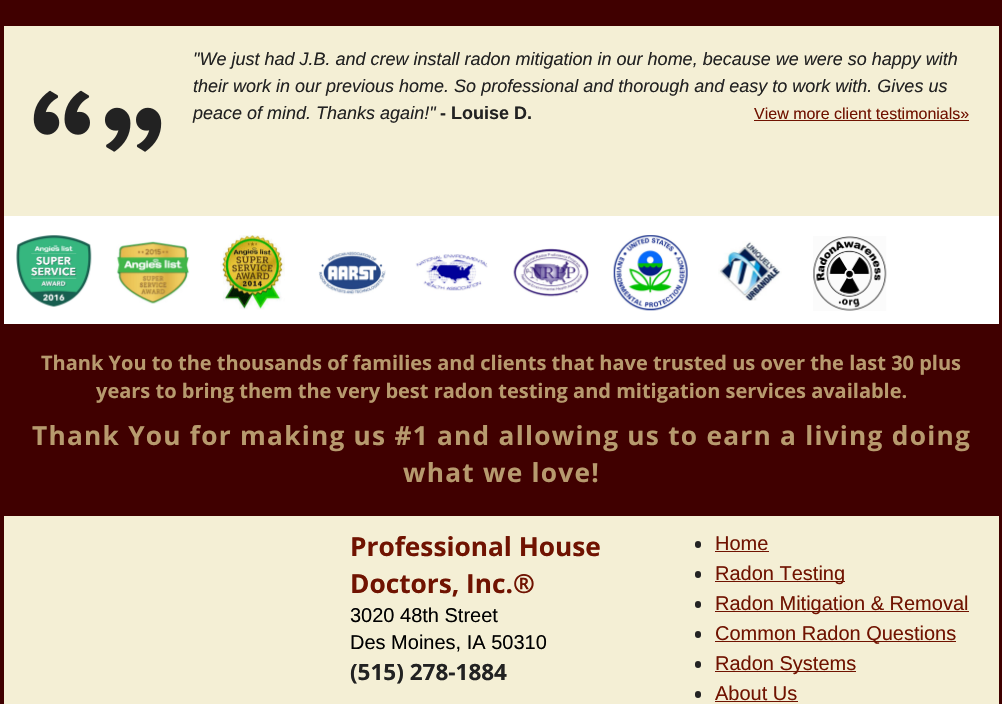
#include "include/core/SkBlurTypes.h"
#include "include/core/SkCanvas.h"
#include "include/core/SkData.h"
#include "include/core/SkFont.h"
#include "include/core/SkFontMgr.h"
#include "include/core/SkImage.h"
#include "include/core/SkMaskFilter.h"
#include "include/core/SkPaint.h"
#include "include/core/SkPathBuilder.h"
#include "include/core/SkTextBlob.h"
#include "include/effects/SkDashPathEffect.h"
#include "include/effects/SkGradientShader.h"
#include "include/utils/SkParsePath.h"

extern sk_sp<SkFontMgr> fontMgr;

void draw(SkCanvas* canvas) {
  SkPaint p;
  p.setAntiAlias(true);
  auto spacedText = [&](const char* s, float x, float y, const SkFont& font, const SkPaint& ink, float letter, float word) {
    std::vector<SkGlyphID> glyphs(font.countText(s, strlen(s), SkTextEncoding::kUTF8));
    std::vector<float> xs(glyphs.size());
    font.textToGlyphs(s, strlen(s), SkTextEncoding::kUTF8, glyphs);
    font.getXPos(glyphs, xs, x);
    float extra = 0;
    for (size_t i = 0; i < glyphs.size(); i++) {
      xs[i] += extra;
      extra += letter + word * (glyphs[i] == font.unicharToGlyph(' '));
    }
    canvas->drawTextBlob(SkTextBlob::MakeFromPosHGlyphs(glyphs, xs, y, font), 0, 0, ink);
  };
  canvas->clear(SK_ColorWHITE);
  p.setColor(SkColorSetRGB(64, 0, 0));
  canvas->drawRect(SkRect::MakeLTRB(999, 0, 1002, 704), p);
  canvas->drawRect(SkRect::MakeLTRB(0, 0, 4, 704), p);
  canvas->drawRect(SkRect::MakeLTRB(4, 0, 999, 26), p);
  p.setColor(SkColorSetRGB(244, 239, 213));
  canvas->drawRect(SkRect::MakeLTRB(4, 26, 999, 216), p);
  canvas->drawImageRect(SkImages::DeferredFromEncodedData(SkData::MakeFromFileName("images/1.png")), SkRect::MakeLTRB(33, 90, 162, 152), SkSamplingOptions());
  p.setColor(SkColorSetRGB(112, 19, 1));
  canvas->drawRect(SkRect::MakeLTRB(754, 120, 969, 121), p);
  canvas->drawImageRect(SkImages::DeferredFromEncodedData(SkData::MakeFromFileName("images/2.png")), SkRect::MakeLTRB(16, 235, 92, 307), SkSamplingOptions());
  canvas->drawImageRect(SkImages::DeferredFromEncodedData(SkData::MakeFromFileName("images/3.png")), SkRect::MakeLTRB(116, 241, 190, 304), SkSamplingOptions());
  canvas->drawImageRect(SkImages::DeferredFromEncodedData(SkData::MakeFromFileName("images/4.png")), SkRect::MakeLTRB(220, 235, 285, 310), SkSamplingOptions());
  canvas->drawImageRect(SkImages::DeferredFromEncodedData(SkData::MakeFromFileName("images/5.png")), SkRect::MakeLTRB(318, 251, 386, 295), SkSamplingOptions());
  canvas->drawImageRect(SkImages::DeferredFromEncodedData(SkData::MakeFromFileName("images/6.png")), SkRect::MakeLTRB(415, 254, 488, 291), SkSamplingOptions());
  canvas->drawImageRect(SkImages::DeferredFromEncodedData(SkData::MakeFromFileName("images/7.png")), SkRect::MakeLTRB(513, 248, 589, 297), SkSamplingOptions());
  canvas->drawImageRect(SkImages::DeferredFromEncodedData(SkData::MakeFromFileName("images/8.png")), SkRect::MakeLTRB(613, 235, 688, 311), SkSamplingOptions());
  canvas->drawImageRect(SkImages::DeferredFromEncodedData(SkData::MakeFromFileName("images/9.png")), SkRect::MakeLTRB(718, 241, 782, 301), SkSamplingOptions());
  canvas->drawImageRect(SkImages::DeferredFromEncodedData(SkData::MakeFromFileName("images/10.png")), SkRect::MakeLTRB(813, 236, 887, 311), SkSamplingOptions());
  p.setColor(SkColorSetRGB(64, 0, 0));
  canvas->drawRect(SkRect::MakeLTRB(4, 324, 999, 516), p);
  p.setColor(SkColorSetRGB(244, 239, 213));
  canvas->drawRect(SkRect::MakeLTRB(4, 516, 999, 704), p);
  p.setColor(SkColorSetRGB(34, 34, 34));
  canvas->drawRoundRect(SkRect::MakeLTRB(695, 541, 701, 548), 3, 3, p);
  p.setColor(SkColorSetRGB(112, 19, 1));
  canvas->drawRect(SkRect::MakeLTRB(715, 551, 769, 552), p);
  p.setColor(SkColorSetRGB(34, 34, 34));
  canvas->drawRoundRect(SkRect::MakeLTRB(695, 571, 701, 578), 3, 3, p);
  p.setColor(SkColorSetRGB(112, 19, 1));
  canvas->drawRect(SkRect::MakeLTRB(715, 581, 845, 582), p);
  p.setColor(SkColorSetRGB(34, 34, 34));
  canvas->drawRoundRect(SkRect::MakeLTRB(695, 601, 701, 608), 3, 3, p);
  p.setColor(SkColorSetRGB(112, 19, 1));
  canvas->drawRect(SkRect::MakeLTRB(715, 611, 969, 612), p);
  p.setColor(SkColorSetRGB(34, 34, 34));
  canvas->drawRoundRect(SkRect::MakeLTRB(695, 631, 701, 638), 3, 3, p);
  p.setColor(SkColorSetRGB(112, 19, 1));
  canvas->drawRect(SkRect::MakeLTRB(715, 641, 956, 642), p);
  p.setColor(SkColorSetRGB(34, 34, 34));
  canvas->drawRoundRect(SkRect::MakeLTRB(695, 661, 701, 668), 3, 3, p);
  p.setColor(SkColorSetRGB(112, 19, 1));
  canvas->drawRect(SkRect::MakeLTRB(715, 671, 856, 672), p);
  p.setColor(SkColorSetRGB(34, 34, 34));
  canvas->drawRoundRect(SkRect::MakeLTRB(695, 691, 701, 698), 3, 3, p);
  p.setColor(SkColorSetRGB(112, 19, 1));
  canvas->drawRect(SkRect::MakeLTRB(715, 701, 798, 702), p);
  SkFont font1(fontMgr->matchFamilyStyle("Liberation Sans", SkFontStyle::Italic()), 18);
  font1.setSubpixel(true);
  p.setColor(SkColorSetRGB(34, 34, 34));
  canvas->drawString("\"We just had J.B. and crew install radon mitigation in our home, because we were so happy with", 193, 65, font1, p);
  canvas->drawString("their work in our previous home. So professional and thorough and easy to work with. Gives us", 193, 92, font1, p);
  canvas->drawString("peace of mind. Thanks again!\"", 193, 119, font1, p);
  SkFont font2(fontMgr->matchFamilyStyle("Liberation Sans", SkFontStyle::Bold()), 18);
  font2.setSubpixel(true);
  canvas->drawString("- Louise D.", 440, 119, font2, p);
  SkFont font3(fontMgr->matchFamilyStyle("Liberation Sans", SkFontStyle::Normal()), 16);
  font3.setSubpixel(true);
  p.setColor(SkColorSetRGB(112, 19, 1));
  canvas->drawString("View more client testimonials»", 754, 119, font3, p);
  SkFont font4(fontMgr->matchFamilyStyle("Open Sans", SkFontStyle::Bold()), 20);
  font4.setSubpixel(true);
  p.setColor(SkColorSetRGB(183, 154, 110));
  canvas->drawString("Thank You to the thousands of families and clients that have trusted us over the last 30 plus", 41, 370, font4, p);
  canvas->drawString("years to bring them the very best radon testing and mitigation services available.", 96, 398, font4, p);
  SkFont font5(fontMgr->matchFamilyStyle("Open Sans", SkFontStyle::Bold()), 26.25f);
  font5.setSubpixel(true);
  spacedText("Thank You for making us #1 and allowing us to earn a living doing", 32, 445, font5, p, 1.25f, 0);
  spacedText("what we love!", 403, 482, font5, p, 1.25f, 0);
  p.setColor(SkColorSetRGB(112, 19, 1));
  canvas->drawString("Professional House", 350, 556, font5, p);
  canvas->drawString("Doctors, Inc.®", 350, 593, font5, p);
  SkFont font6(fontMgr->matchFamilyStyle("Liberation Sans", SkFontStyle::Normal()), 20);
  font6.setSubpixel(true);
  p.setColor(SK_ColorBLACK);
  canvas->drawString("3020 48th Street", 350, 622, font6, p);
  canvas->drawString("Des Moines, IA 50310", 350, 649, font6, p);
  SkFont font7(fontMgr->matchFamilyStyle("Open Sans", SkFontStyle::Bold()), 22.5f);
  font7.setSubpixel(true);
  p.setColor(SkColorSetRGB(34, 34, 34));
  canvas->drawString("(515) 278-1884", 350, 680, font7, p);
  p.setColor(SkColorSetRGB(112, 19, 1));
  canvas->drawString("Home", 715, 550, font6, p);
  canvas->drawString("Radon Testing", 715, 580, font6, p);
  canvas->drawString("Radon Mitigation & Removal", 715, 610, font6, p);
  canvas->drawString("Common Radon Questions", 715, 640, font6, p);
  canvas->drawString("Radon Systems", 715, 670, font6, p);
  canvas->drawString("About Us", 715, 700, font6, p);
}
